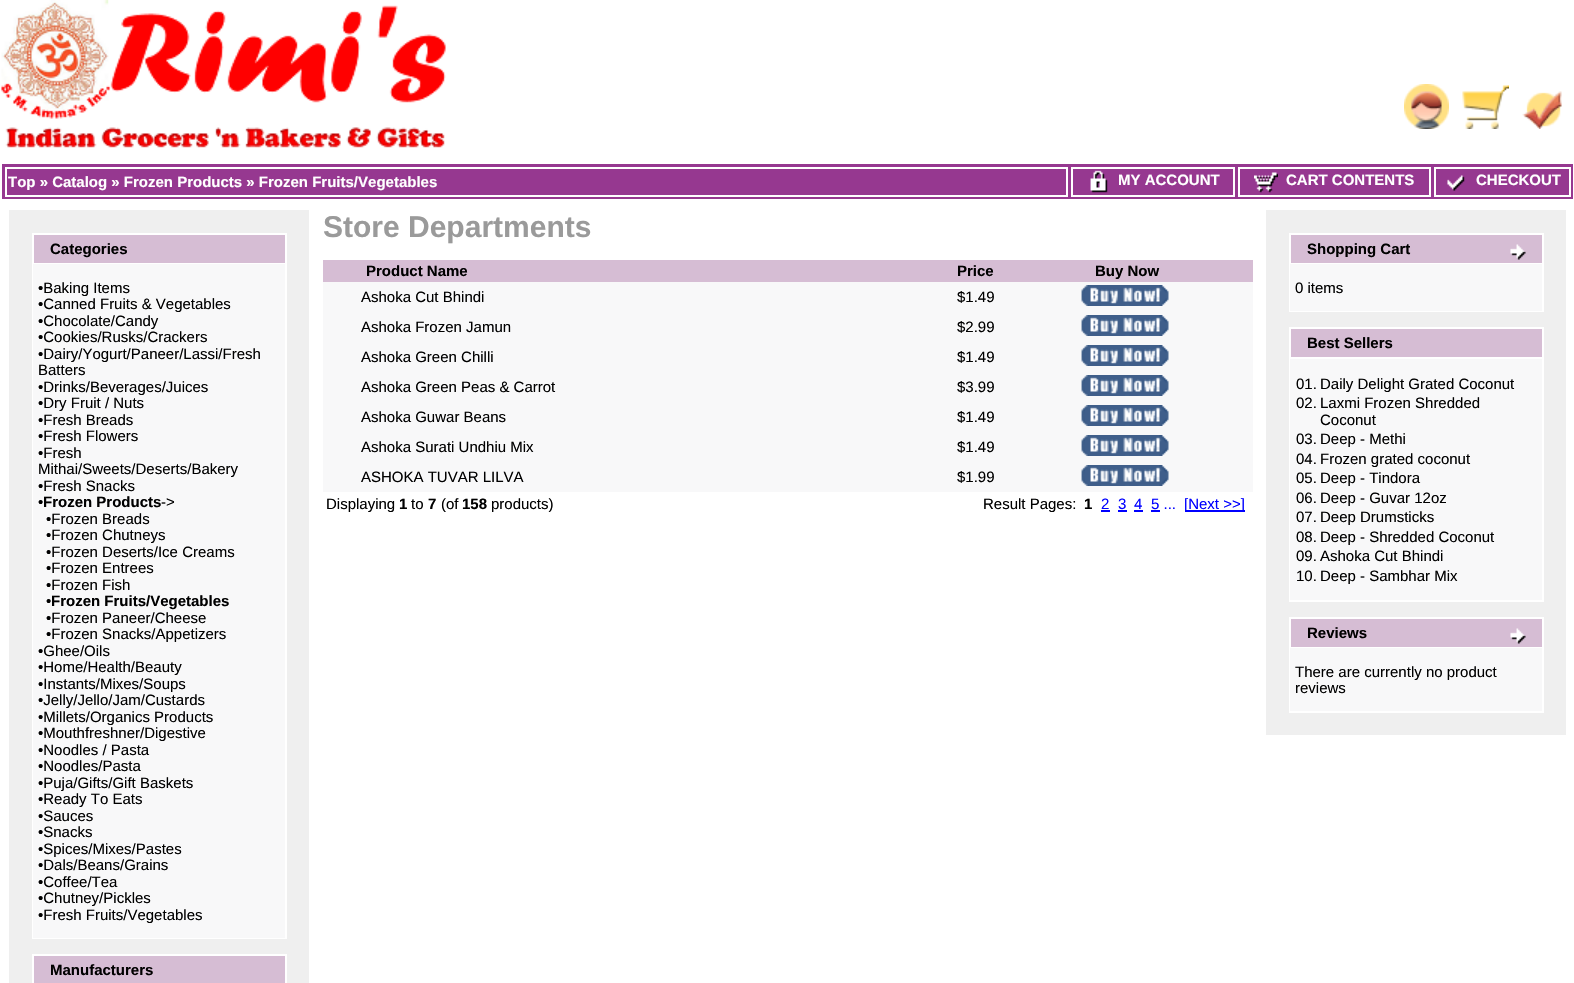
#include "include/core/SkBlurTypes.h"
#include "include/core/SkCanvas.h"
#include "include/core/SkData.h"
#include "include/core/SkFont.h"
#include "include/core/SkFontMgr.h"
#include "include/core/SkImage.h"
#include "include/core/SkMaskFilter.h"
#include "include/core/SkPaint.h"
#include "include/core/SkPathBuilder.h"
#include "include/core/SkTextBlob.h"
#include "include/effects/SkDashPathEffect.h"
#include "include/effects/SkGradientShader.h"
#include "include/utils/SkParsePath.h"

extern sk_sp<SkFontMgr> fontMgr;

void draw(SkCanvas* canvas) {
  SkPaint p;
  p.setAntiAlias(true);
  canvas->clear(SK_ColorWHITE);
  canvas->drawImageRect(SkImages::DeferredFromEncodedData(SkData::MakeFromFileName("images/1.png")), SkRect::MakeLTRB(1, 0, 446, 148), SkSamplingOptions());
  canvas->drawImageRect(SkImages::DeferredFromEncodedData(SkData::MakeFromFileName("images/2.png")), SkRect::MakeLTRB(1404, 84, 1449, 129), SkSamplingOptions());
  canvas->drawImageRect(SkImages::DeferredFromEncodedData(SkData::MakeFromFileName("images/3.png")), SkRect::MakeLTRB(1462, 85, 1509, 129), SkSamplingOptions());
  canvas->drawImageRect(SkImages::DeferredFromEncodedData(SkData::MakeFromFileName("images/4.png")), SkRect::MakeLTRB(1522, 91, 1562, 129), SkSamplingOptions());
  p.setColor(SkColorSetRGB(150, 56, 144));
  canvas->drawRect(SkRect::MakeLTRB(2, 164, 1573, 199), p);
  p.setStyle(SkPaint::kStroke_Style);
  p.setStrokeWidth(2);
  p.setColor(SK_ColorWHITE);
  canvas->drawRect(SkRect::MakeLTRB(6, 168, 1067, 196), p);
  canvas->drawRect(SkRect::MakeLTRB(1072, 168, 1234, 196), p);
  canvas->drawImageRect(SkImages::DeferredFromEncodedData(SkData::MakeFromFileName("images/5.png")), SkRect::MakeLTRB(1090, 170, 1108, 193), SkSamplingOptions());
  canvas->drawRect(SkRect::MakeLTRB(1239, 168, 1430, 196), p);
  canvas->drawImageRect(SkImages::DeferredFromEncodedData(SkData::MakeFromFileName("images/6.png")), SkRect::MakeLTRB(1254, 172, 1278, 193), SkSamplingOptions());
  canvas->drawRect(SkRect::MakeLTRB(1435, 168, 1570, 196), p);
  canvas->drawImageRect(SkImages::DeferredFromEncodedData(SkData::MakeFromFileName("images/7.png")), SkRect::MakeLTRB(1447, 175, 1465, 191), SkSamplingOptions());
  p.setStyle(SkPaint::kFill_Style);
  p.setColor(SkColorSetRGB(239, 239, 239));
  canvas->drawRect(SkRect::MakeLTRB(9, 210, 309, 983), p);
  p.setColor(SkColorSetRGB(214, 189, 212));
  canvas->drawRect(SkRect::MakeLTRB(34, 235, 285, 263), p);
  p.setColor(SK_ColorWHITE);
  canvas->drawRect(SkRect::MakeLTRB(32, 233, 287, 235), p);
  canvas->drawRect(SkRect::MakeLTRB(32, 233, 34, 263), p);
  canvas->drawRect(SkRect::MakeLTRB(285, 233, 287, 263), p);
  canvas->drawRect(SkRect::MakeLTRB(32, 263, 287, 939), p);
  p.setColor(SkColorSetRGB(248, 248, 249));
  canvas->drawRect(SkRect::MakeLTRB(33, 264, 285, 938), p);
  p.setColor(SkColorSetRGB(214, 189, 212));
  canvas->drawRect(SkRect::MakeLTRB(34, 956, 285, 983), p);
  p.setColor(SK_ColorWHITE);
  canvas->drawRect(SkRect::MakeLTRB(32, 954, 287, 956), p);
  canvas->drawRect(SkRect::MakeLTRB(32, 954, 34, 983), p);
  canvas->drawRect(SkRect::MakeLTRB(285, 954, 287, 983), p);
  p.setColor(SkColorSetRGB(214, 189, 212));
  canvas->drawRect(SkRect::MakeLTRB(323, 260, 1253, 282), p);
  p.setColor(SkColorSetRGB(248, 248, 249));
  canvas->drawRect(SkRect::MakeLTRB(323, 282, 1253, 492), p);
  canvas->drawImageRect(SkImages::DeferredFromEncodedData(SkData::MakeFromFileName("images/8.png")), SkRect::MakeLTRB(1081, 285, 1169, 306), SkSamplingOptions());
  canvas->drawImageRect(SkImages::DeferredFromEncodedData(SkData::MakeFromFileName("images/8.png")), SkRect::MakeLTRB(1081, 315, 1169, 336), SkSamplingOptions());
  canvas->drawImageRect(SkImages::DeferredFromEncodedData(SkData::MakeFromFileName("images/8.png")), SkRect::MakeLTRB(1081, 345, 1169, 366), SkSamplingOptions());
  canvas->drawImageRect(SkImages::DeferredFromEncodedData(SkData::MakeFromFileName("images/8.png")), SkRect::MakeLTRB(1081, 375, 1169, 396), SkSamplingOptions());
  canvas->drawImageRect(SkImages::DeferredFromEncodedData(SkData::MakeFromFileName("images/8.png")), SkRect::MakeLTRB(1081, 405, 1169, 426), SkSamplingOptions());
  canvas->drawImageRect(SkImages::DeferredFromEncodedData(SkData::MakeFromFileName("images/8.png")), SkRect::MakeLTRB(1081, 435, 1169, 456), SkSamplingOptions());
  canvas->drawImageRect(SkImages::DeferredFromEncodedData(SkData::MakeFromFileName("images/8.png")), SkRect::MakeLTRB(1081, 465, 1169, 486), SkSamplingOptions());
  p.setColor(SkColorSetRGB(0, 0, 255));
  canvas->drawRect(SkRect::MakeLTRB(1101, 510, 1110, 512), p);
  canvas->drawRect(SkRect::MakeLTRB(1118, 510, 1127, 512), p);
  canvas->drawRect(SkRect::MakeLTRB(1134, 510, 1143, 512), p);
  canvas->drawRect(SkRect::MakeLTRB(1151, 510, 1160, 512), p);
  canvas->drawRect(SkRect::MakeLTRB(1185, 510, 1245, 512), p);
  p.setColor(SkColorSetRGB(239, 239, 239));
  canvas->drawRect(SkRect::MakeLTRB(1266, 210, 1566, 735), p);
  p.setColor(SkColorSetRGB(214, 189, 212));
  canvas->drawRect(SkRect::MakeLTRB(1291, 235, 1542, 263), p);
  p.setColor(SK_ColorWHITE);
  canvas->drawRect(SkRect::MakeLTRB(1289, 233, 1544, 235), p);
  canvas->drawRect(SkRect::MakeLTRB(1289, 233, 1291, 263), p);
  canvas->drawRect(SkRect::MakeLTRB(1542, 233, 1544, 263), p);
  canvas->drawImageRect(SkImages::DeferredFromEncodedData(SkData::MakeFromFileName("images/9.png")), SkRect::MakeLTRB(1510, 244, 1526, 260), SkSamplingOptions());
  canvas->drawRect(SkRect::MakeLTRB(1289, 263, 1544, 312), p);
  p.setColor(SkColorSetRGB(248, 248, 249));
  canvas->drawRect(SkRect::MakeLTRB(1290, 264, 1542, 311), p);
  p.setColor(SkColorSetRGB(214, 189, 212));
  canvas->drawRect(SkRect::MakeLTRB(1291, 329, 1542, 357), p);
  p.setColor(SK_ColorWHITE);
  canvas->drawRect(SkRect::MakeLTRB(1289, 327, 1544, 329), p);
  canvas->drawRect(SkRect::MakeLTRB(1289, 327, 1291, 357), p);
  canvas->drawRect(SkRect::MakeLTRB(1542, 327, 1544, 357), p);
  canvas->drawRect(SkRect::MakeLTRB(1289, 357, 1544, 602), p);
  p.setColor(SkColorSetRGB(248, 248, 249));
  canvas->drawRect(SkRect::MakeLTRB(1290, 359, 1542, 600), p);
  p.setColor(SkColorSetRGB(214, 189, 212));
  canvas->drawRect(SkRect::MakeLTRB(1291, 619, 1542, 647), p);
  p.setColor(SK_ColorWHITE);
  canvas->drawRect(SkRect::MakeLTRB(1289, 617, 1544, 619), p);
  canvas->drawRect(SkRect::MakeLTRB(1289, 617, 1291, 647), p);
  canvas->drawRect(SkRect::MakeLTRB(1542, 617, 1544, 647), p);
  canvas->drawImageRect(SkImages::DeferredFromEncodedData(SkData::MakeFromFileName("images/9.png")), SkRect::MakeLTRB(1510, 628, 1526, 644), SkSamplingOptions());
  canvas->drawRect(SkRect::MakeLTRB(1289, 647, 1544, 713), p);
  p.setColor(SkColorSetRGB(248, 248, 249));
  canvas->drawRect(SkRect::MakeLTRB(1290, 648, 1542, 711), p);
  SkFont font1(fontMgr->matchFamilyStyle("Liberation Sans", SkFontStyle::Bold()), 15);
  font1.setSubpixel(true);
  p.setColor(SK_ColorWHITE);
  canvas->drawString("Top » Catalog » Frozen Products » Frozen Fruits/Vegetables", 8, 187, font1, p);
  canvas->drawString("MY ACCOUNT", 1118, 185, font1, p);
  canvas->drawString("CART CONTENTS", 1286, 185, font1, p);
  canvas->drawString("CHECKOUT", 1476, 185, font1, p);
  p.setColor(SK_ColorBLACK);
  canvas->drawString("Categories", 50, 254, font1, p);
  SkFont font2(fontMgr->matchFamilyStyle("Liberation Sans", SkFontStyle::Normal()), 15);
  font2.setSubpixel(true);
  canvas->drawString("•Baking Items", 38, 293, font2, p);
  canvas->drawString("•Canned Fruits & Vegetables", 38, 309, font2, p);
  canvas->drawString("•Chocolate/Candy", 38, 326, font2, p);
  canvas->drawString("•Cookies/Rusks/Crackers", 38, 342, font2, p);
  canvas->drawString("•Dairy/Yogurt/Paneer/Lassi/Fresh", 38, 359, font2, p);
  canvas->drawString("Batters", 38, 375, font2, p);
  canvas->drawString("•Drinks/Beverages/Juices", 38, 392, font2, p);
  canvas->drawString("•Dry Fruit / Nuts", 38, 408, font2, p);
  canvas->drawString("•Fresh Breads", 38, 425, font2, p);
  canvas->drawString("•Fresh Flowers", 38, 441, font2, p);
  canvas->drawString("•Fresh", 38, 458, font2, p);
  canvas->drawString("Mithai/Sweets/Deserts/Bakery", 38, 474, font2, p);
  canvas->drawString("•Fresh Snacks", 38, 491, font2, p);
  canvas->drawString("•", 38, 507, font2, p);
  canvas->drawString("Frozen Products", 43, 507, font1, p);
  canvas->drawString("->", 161, 507, font2, p);
  canvas->drawString("•Frozen Breads", 46, 524, font2, p);
  canvas->drawString("•Frozen Chutneys", 46, 540, font2, p);
  canvas->drawString("•Frozen Deserts/Ice Creams", 46, 557, font2, p);
  canvas->drawString("•Frozen Entrees", 46, 573, font2, p);
  canvas->drawString("•Frozen Fish", 46, 590, font2, p);
  canvas->drawString("•", 46, 606, font2, p);
  canvas->drawString("Frozen Fruits/Vegetables", 51, 606, font1, p);
  canvas->drawString("•Frozen Paneer/Cheese", 46, 623, font2, p);
  canvas->drawString("•Frozen Snacks/Appetizers", 46, 639, font2, p);
  canvas->drawString("•Ghee/Oils", 38, 656, font2, p);
  canvas->drawString("•Home/Health/Beauty", 38, 672, font2, p);
  canvas->drawString("•Instants/Mixes/Soups", 38, 689, font2, p);
  canvas->drawString("•Jelly/Jello/Jam/Custards", 38, 705, font2, p);
  canvas->drawString("•Millets/Organics Products", 38, 722, font2, p);
  canvas->drawString("•Mouthfreshner/Digestive", 38, 738, font2, p);
  canvas->drawString("•Noodles / Pasta", 38, 755, font2, p);
  canvas->drawString("•Noodles/Pasta", 38, 771, font2, p);
  canvas->drawString("•Puja/Gifts/Gift Baskets", 38, 788, font2, p);
  canvas->drawString("•Ready To Eats", 38, 804, font2, p);
  canvas->drawString("•Sauces", 38, 821, font2, p);
  canvas->drawString("•Snacks", 38, 837, font2, p);
  canvas->drawString("•Spices/Mixes/Pastes", 38, 854, font2, p);
  canvas->drawString("•Dals/Beans/Grains", 38, 870, font2, p);
  canvas->drawString("•Coffee/Tea", 38, 887, font2, p);
  canvas->drawString("•Chutney/Pickles", 38, 903, font2, p);
  canvas->drawString("•Fresh Fruits/Vegetables", 38, 920, font2, p);
  canvas->drawString("Manufacturers", 50, 975, font1, p);
  SkFont font3(fontMgr->matchFamilyStyle("Liberation Sans", SkFontStyle::Bold()), 30);
  font3.setSubpixel(true);
  p.setColor(SkColorSetRGB(154, 154, 154));
  canvas->drawString("Store Departments", 323, 237, font3, p);
  p.setColor(SK_ColorBLACK);
  canvas->drawString("Product Name", 366, 276, font1, p);
  canvas->drawString("Price", 957, 276, font1, p);
  canvas->drawString("Buy Now", 1095, 276, font1, p);
  canvas->drawString("Ashoka Cut Bhindi", 361, 302, font2, p);
  canvas->drawString("$1.49", 957, 302, font2, p);
  canvas->drawString("Ashoka Frozen Jamun", 361, 332, font2, p);
  canvas->drawString("$2.99", 957, 332, font2, p);
  canvas->drawString("Ashoka Green Chilli", 361, 362, font2, p);
  canvas->drawString("$1.49", 957, 362, font2, p);
  canvas->drawString("Ashoka Green Peas & Carrot", 361, 392, font2, p);
  canvas->drawString("$3.99", 957, 392, font2, p);
  canvas->drawString("Ashoka Guwar Beans", 361, 422, font2, p);
  canvas->drawString("$1.49", 957, 422, font2, p);
  canvas->drawString("Ashoka Surati Undhiu Mix", 361, 452, font2, p);
  canvas->drawString("$1.49", 957, 452, font2, p);
  canvas->drawString("ASHOKA TUVAR LILVA", 361, 482, font2, p);
  canvas->drawString("$1.99", 957, 482, font2, p);
  canvas->drawString("Displaying", 326, 509, font2, p);
  canvas->drawString("1", 399, 509, font1, p);
  canvas->drawString("to", 411, 509, font2, p);
  canvas->drawString("7", 428, 509, font1, p);
  canvas->drawString("(of", 441, 509, font2, p);
  canvas->drawString("158", 462, 509, font1, p);
  canvas->drawString("products)", 491, 509, font2, p);
  canvas->drawString("Result Pages:", 983, 509, font2, p);
  canvas->drawString("1", 1084, 509, font1, p);
  p.setColor(SkColorSetRGB(0, 0, 255));
  canvas->drawString("2", 1101, 509, font2, p);
  canvas->drawString("3", 1118, 509, font2, p);
  canvas->drawString("4", 1134, 509, font2, p);
  canvas->drawString("5 ...", 1151, 509, font2, p);
  canvas->drawString("[Next >>]", 1184, 509, font2, p);
  p.setColor(SK_ColorBLACK);
  canvas->drawString("Shopping Cart", 1307, 254, font1, p);
  canvas->drawString("0 items", 1295, 293, font2, p);
  canvas->drawString("Best Sellers", 1307, 348, font1, p);
  canvas->drawString("01.", 1296, 389, font2, p);
  canvas->drawString("Daily Delight Grated Coconut", 1320, 389, font2, p);
  canvas->drawString("02.", 1296, 408, font2, p);
  canvas->drawString("Laxmi Frozen Shredded", 1320, 408, font2, p);
  canvas->drawString("Coconut", 1320, 425, font2, p);
  canvas->drawString("03.", 1296, 444, font2, p);
  canvas->drawString("Deep - Methi", 1320, 444, font2, p);
  canvas->drawString("04.", 1296, 464, font2, p);
  canvas->drawString("Frozen grated coconut", 1320, 464, font2, p);
  canvas->drawString("05.", 1296, 483, font2, p);
  canvas->drawString("Deep - Tindora", 1320, 483, font2, p);
  canvas->drawString("06.", 1296, 503, font2, p);
  canvas->drawString("Deep - Guvar 12oz", 1320, 503, font2, p);
  canvas->drawString("07.", 1296, 522, font2, p);
  canvas->drawString("Deep Drumsticks", 1320, 522, font2, p);
  canvas->drawString("08.", 1296, 542, font2, p);
  canvas->drawString("Deep - Shredded Coconut", 1320, 542, font2, p);
  canvas->drawString("09.", 1296, 561, font2, p);
  canvas->drawString("Ashoka Cut Bhindi", 1320, 561, font2, p);
  canvas->drawString("10.", 1296, 581, font2, p);
  canvas->drawString("Deep - Sambhar Mix", 1320, 581, font2, p);
  canvas->drawString("Reviews", 1307, 638, font1, p);
  canvas->drawString("There are currently no product", 1295, 677, font2, p);
  canvas->drawString("reviews", 1295, 693, font2, p);
}
